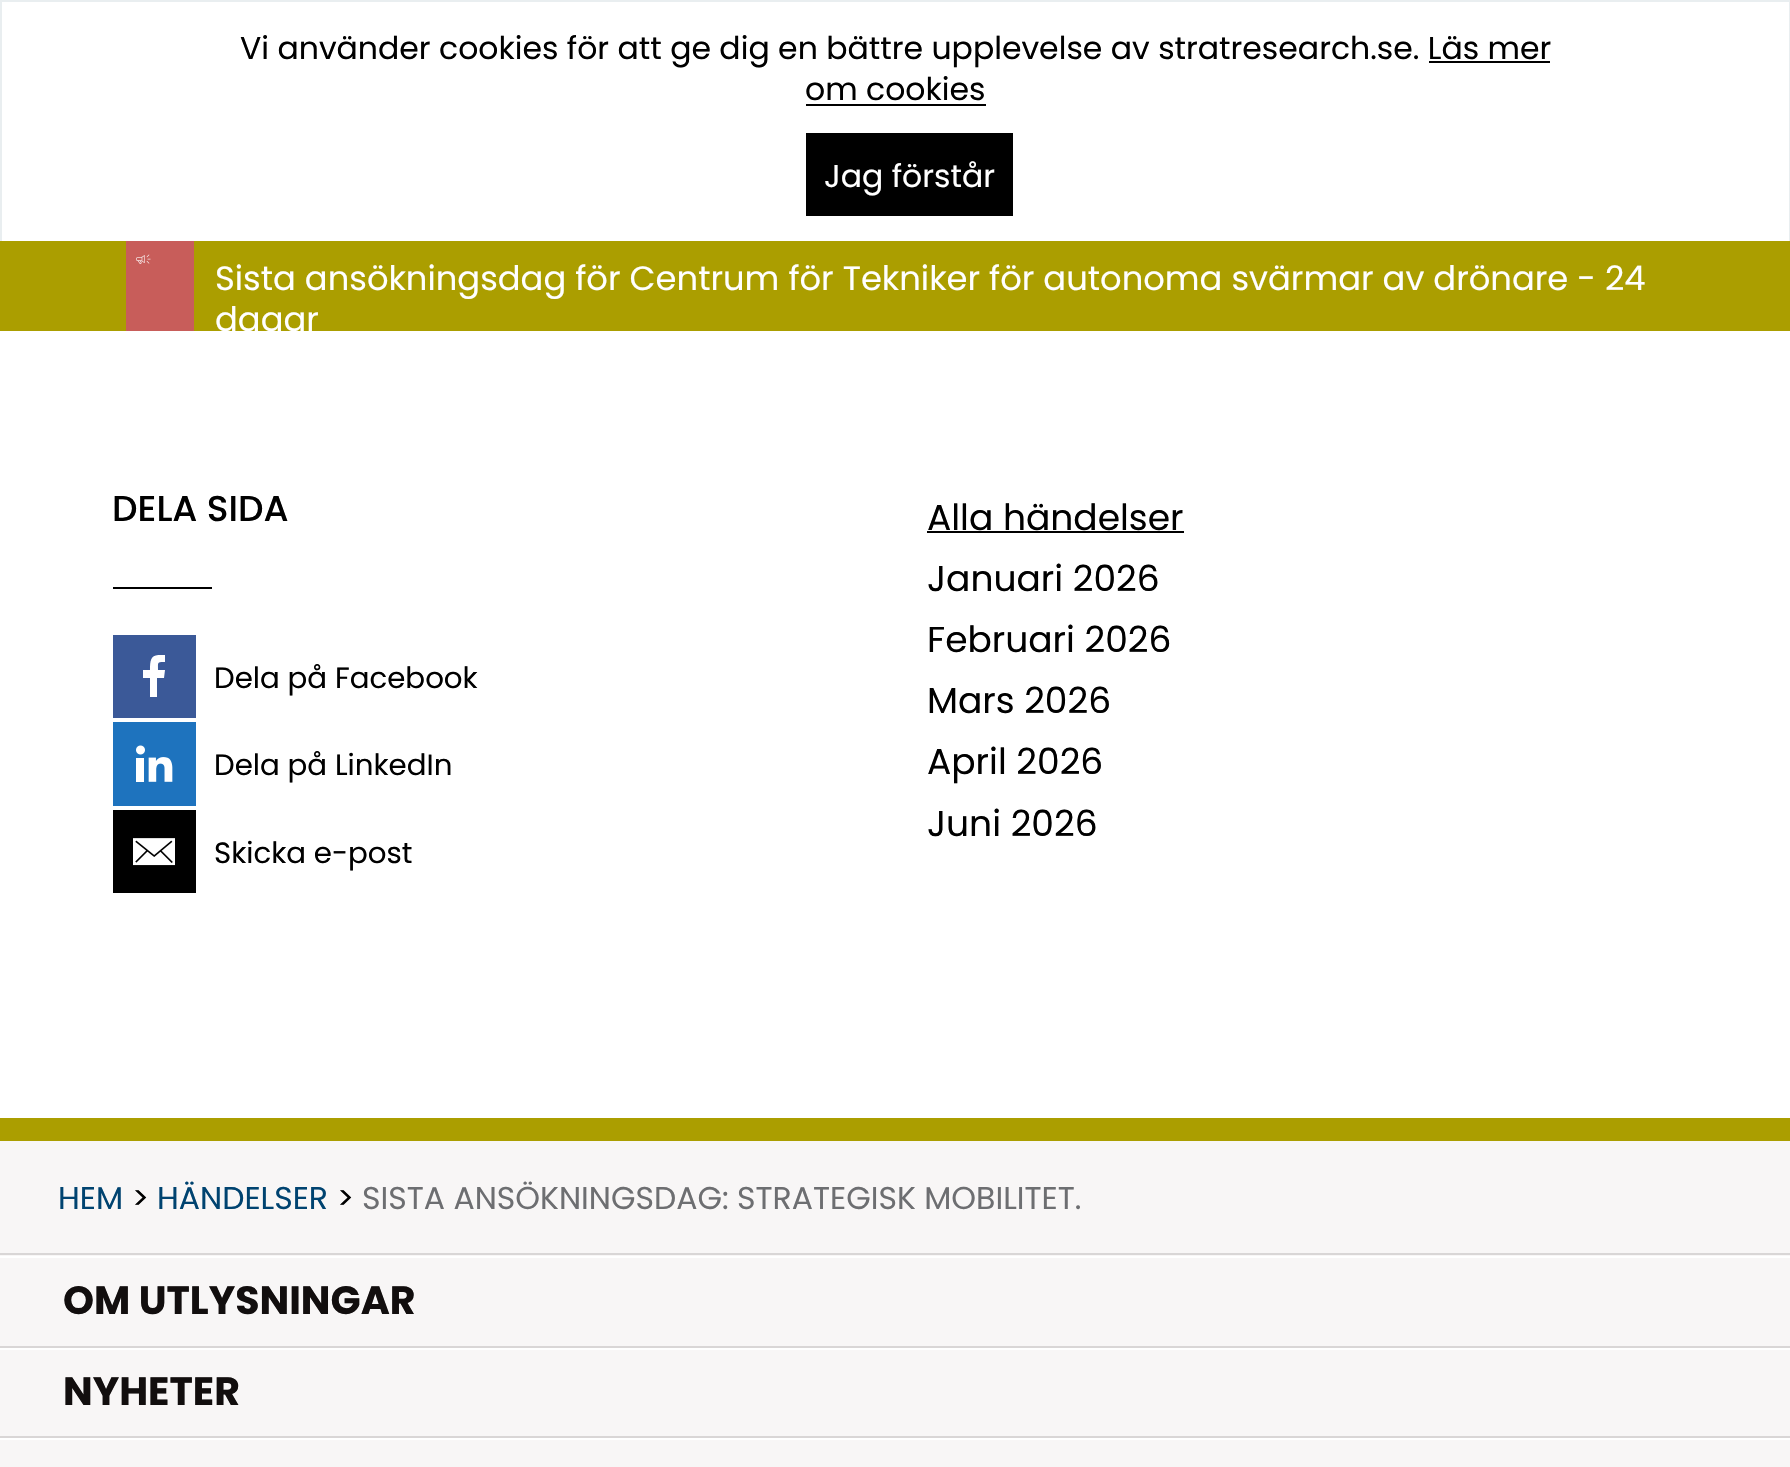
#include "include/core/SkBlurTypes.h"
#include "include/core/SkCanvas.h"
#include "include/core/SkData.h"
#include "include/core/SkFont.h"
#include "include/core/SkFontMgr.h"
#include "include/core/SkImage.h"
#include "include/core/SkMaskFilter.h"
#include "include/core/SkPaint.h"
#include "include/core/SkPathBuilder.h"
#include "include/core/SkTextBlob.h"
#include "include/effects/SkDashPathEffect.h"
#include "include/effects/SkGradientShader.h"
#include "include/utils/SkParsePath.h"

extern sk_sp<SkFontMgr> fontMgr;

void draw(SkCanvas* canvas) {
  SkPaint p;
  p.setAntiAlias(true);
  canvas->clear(SK_ColorWHITE);
  p.setStyle(SkPaint::kStroke_Style);
  p.setStrokeWidth(2);
  p.setColor(SkColorSetRGB(233, 238, 240));
  canvas->drawRect(SkRect::MakeLTRB(1, 1, 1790, 242), p);
  p.setStyle(SkPaint::kFill_Style);
  p.setColor(SK_ColorBLACK);
  canvas->drawRect(SkRect::MakeLTRB(1429, 61, 1550, 63), p);
  canvas->drawRect(SkRect::MakeLTRB(806, 104, 986, 106), p);
  canvas->drawRect(SkRect::MakeLTRB(806, 133, 1013, 216), p);
  p.setColor(SkColorSetRGB(171, 158, 0));
  canvas->drawRect(SkRect::MakeLTRB(0, 241, 1790, 331), p);
  p.setColor(SkColorSetRGB(200, 93, 90));
  canvas->drawRect(SkRect::MakeLTRB(126, 241, 194, 331), p);
  canvas->drawImageRect(SkImages::DeferredFromEncodedData(SkData::MakeFromFileName("images/1.png")), SkRect::MakeLTRB(136, 254, 151, 264), SkSamplingOptions());
  p.setColor(SK_ColorBLACK);
  canvas->drawRect(SkRect::MakeLTRB(113, 587, 212, 589), p);
  p.setColor(SkColorSetRGB(59, 89, 152));
  canvas->drawRect(SkRect::MakeLTRB(113, 635, 196, 718), p);
  canvas->save();
  canvas->clipRect(SkRect::MakeLTRB(133, 655, 175, 697));
  p.setColor(SK_ColorWHITE);
  canvas->drawPath(SkPathBuilder().moveTo(143, 670).lineTo(150, 670).cubicTo(150, 658, 151, 654, 165, 655).lineTo(165, 662).cubicTo(157, 662, 158, 662, 158, 670).lineTo(165, 670).lineTo(164, 678).lineTo(157, 678).lineTo(157, 697).lineTo(150, 697).lineTo(150, 678).lineTo(143, 678).close().detach(), p);
  canvas->restore();
  p.setColor(SkColorSetRGB(30, 115, 190));
  canvas->drawRect(SkRect::MakeLTRB(113, 722, 196, 806), p);
  canvas->drawImageRect(SkImages::DeferredFromEncodedData(SkData::MakeFromFileName("images/2.png")), SkRect::MakeLTRB(136, 745, 173, 782), SkSamplingOptions());
  p.setColor(SK_ColorBLACK);
  canvas->drawRect(SkRect::MakeLTRB(113, 810, 196, 893), p);
  canvas->drawImageRect(SkImages::DeferredFromEncodedData(SkData::MakeFromFileName("images/3.png")), SkRect::MakeLTRB(133, 838, 175, 866), SkSamplingOptions());
  canvas->drawRect(SkRect::MakeLTRB(927, 531, 1184, 533), p);
  p.setColor(SkColorSetRGB(248, 246, 246));
  canvas->drawRect(SkRect::MakeLTRB(0, 1141, 1790, 1467), p);
  p.setColor(SkColorSetRGB(171, 158, 0));
  canvas->drawRect(SkRect::MakeLTRB(0, 1118, 1790, 1141), p);
  p.setColor(SkColorSetRGB(217, 214, 214));
  canvas->drawRect(SkRect::MakeLTRB(0, 1253, 1790, 1255), p);
  p.setColor(SK_ColorWHITE);
  canvas->drawRect(SkRect::MakeLTRB(0, 1256, 1790, 1258), p);
  p.setColor(SkColorSetRGB(217, 214, 214));
  canvas->drawRect(SkRect::MakeLTRB(0, 1346, 1790, 1348), p);
  p.setColor(SK_ColorWHITE);
  canvas->drawRect(SkRect::MakeLTRB(0, 1348, 1790, 1350), p);
  p.setColor(SkColorSetRGB(217, 214, 214));
  canvas->drawRect(SkRect::MakeLTRB(0, 1436, 1790, 1438), p);
  p.setColor(SK_ColorWHITE);
  canvas->drawRect(SkRect::MakeLTRB(0, 1438, 1790, 1440), p);
  SkFont font1(fontMgr->matchFamilyStyle("Poppins", SkFontStyle::Normal()), 31.5f);
  font1.setSubpixel(true);
  p.setColor(SK_ColorBLACK);
  canvas->drawString("Vi använder cookies för att ge dig en bättre upplevelse av stratresearch.se. Läs mer", 240, 59, font1, p);
  canvas->drawString("om cookies", 805, 100, font1, p);
  p.setColor(SK_ColorWHITE);
  canvas->drawString("Jag förstår", 824, 187, font1, p);
  SkFont font2(fontMgr->matchFamilyStyle("Poppins", SkFontStyle::Normal()), 33.75f);
  font2.setSubpixel(true);
  canvas->drawString("Sista ansökningsdag för Centrum för Tekniker för autonoma svärmar av drönare - 24", 215, 290, font2, p);
  canvas->drawString("dagar", 215, 331, font2, p);
  SkFont font3(fontMgr->matchFamilyStyle("Poppins", SkFontStyle(500, SkFontStyle::kNormal_Width, SkFontStyle::kUpright_Slant)), 36);
  font3.setSubpixel(true);
  p.setColor(SK_ColorBLACK);
  canvas->drawString("DELA SIDA", 112, 521, font3, p);
  SkFont font4(fontMgr->matchFamilyStyle("Poppins", SkFontStyle::Normal()), 29.25f);
  font4.setSubpixel(true);
  canvas->drawString("Dela på Facebook", 214, 688, font4, p);
  canvas->drawString("Dela på LinkedIn", 214, 775, font4, p);
  canvas->drawString("Skicka e-post", 214, 863, font4, p);
  SkFont font5(fontMgr->matchFamilyStyle("Poppins", SkFontStyle::Normal()), 36);
  font5.setSubpixel(true);
  canvas->drawString("Alla händelser", 927, 530, font5, p);
  canvas->drawString("Januari 2026", 927, 591, font5, p);
  canvas->drawString("Februari 2026", 927, 652, font5, p);
  canvas->drawString("Mars 2026", 927, 713, font5, p);
  canvas->drawString("April 2026", 927, 774, font5, p);
  canvas->drawString("Juni 2026", 927, 836, font5, p);
  p.setColor(SkColorSetRGB(0, 67, 112));
  canvas->drawString("HEM", 58, 1209, font1, p);
  p.setColor(SK_ColorBLACK);
  canvas->drawString(">", 132, 1209, font1, p);
  p.setColor(SkColorSetRGB(0, 67, 112));
  canvas->drawString("HÄNDELSER", 157, 1209, font1, p);
  p.setColor(SK_ColorBLACK);
  canvas->drawString(">", 337, 1209, font1, p);
  p.setColor(SkColorSetRGB(109, 110, 113));
  canvas->drawString("SISTA ANSÖKNINGSDAG: STRATEGISK MOBILITET.", 362, 1209, font1, p);
  SkFont font6(fontMgr->matchFamilyStyle("Poppins", SkFontStyle::Bold()), 39.5f);
  font6.setSubpixel(true);
  p.setColor(SkColorSetRGB(18, 14, 14));
  canvas->drawString("OM UTLYSNINGAR", 63, 1314, font6, p);
  canvas->drawString("NYHETER", 63, 1405, font6, p);
}
